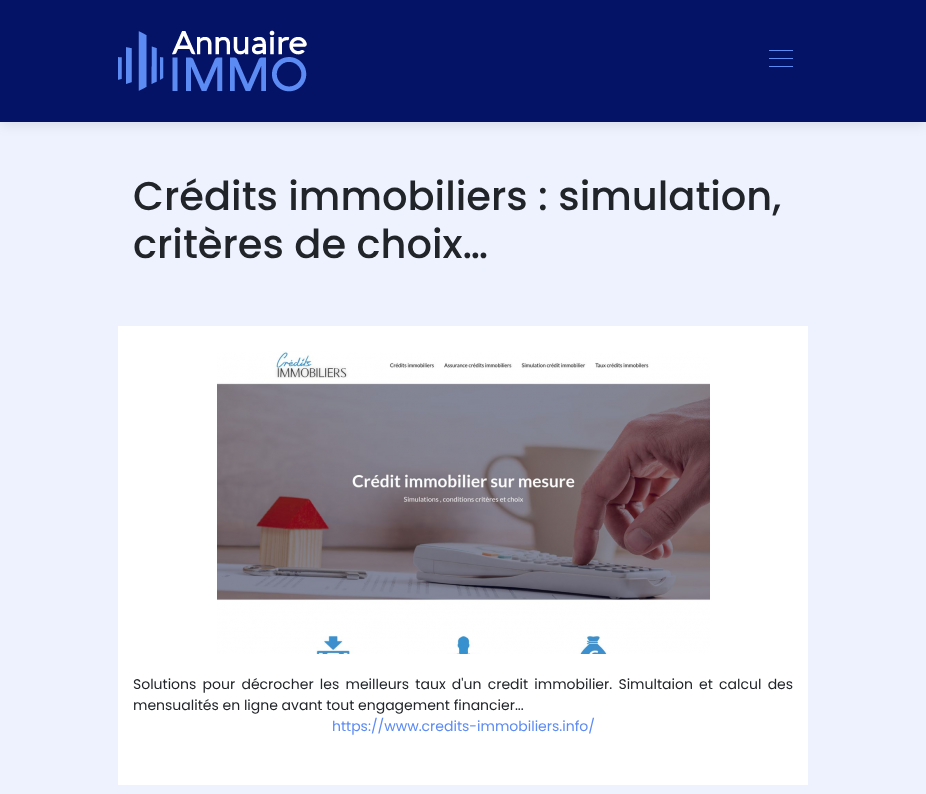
async function draw(canvas) {
  canvas.width = 926
  canvas.height = 794
  const ctx = canvas.getContext('2d')
  ctx.miterLimit = 4
  ctx.fontKerning = 'normal'
  async function loadImage(src) {
    const img = new Image()
    img.src = src
    await img.decode()
    return img
  }

  ctx.fillStyle = '#eef2ff'
  ctx.fillRect(0, 0, 926, 794)
  ctx.fillStyle = '#0000001a'
  ctx.filter = 'blur(6.5px)'
  ctx.beginPath()
  ctx.rect(0, 2, 926, 122)
  ctx.fill()
  ctx.filter = 'none'
  ctx.fillStyle = '#051367'
  ctx.fillRect(0, 0, 926, 122)
  ctx.drawImage(await loadImage('image0.png'), 118, 30, 189, 62)
  ctx.fillStyle = '#5d8bf4'
  ctx.fillRect(769, 50, 24, 1)
  ctx.fillRect(769, 58, 24, 1)
  ctx.fillRect(769, 66, 24, 1)
  ctx.font = '500 40px Poppins'
  ctx.fillStyle = '#212529'
  ctx.fillText('Crédits immobiliers : simulation,', 133, 210)
  ctx.fillText('critères de choix…', 133, 258)
  ctx.fillStyle = '#fff'
  ctx.fillRect(118, 326, 690, 459)
  ctx.drawImage(await loadImage('image1.png'), 217, 351, 493, 303)
  ctx.wordSpacing = '2.5px'
  ctx.font = '14px Poppins'
  ctx.fillStyle = '#212529'
  ctx.fillText('Solutions pour décrocher les meilleurs taux d\'un credit immobilier. Simultaion et calcul des', 133, 689)
  ctx.wordSpacing = '0px'
  ctx.fillText('mensualités en ligne avant tout engagement financier...', 133, 710)
  ctx.fillStyle = '#5d8bf4'
  ctx.fillText('https://www.credits-immobiliers.info/', 332, 731)
}

draw(document.querySelector('canvas'))
